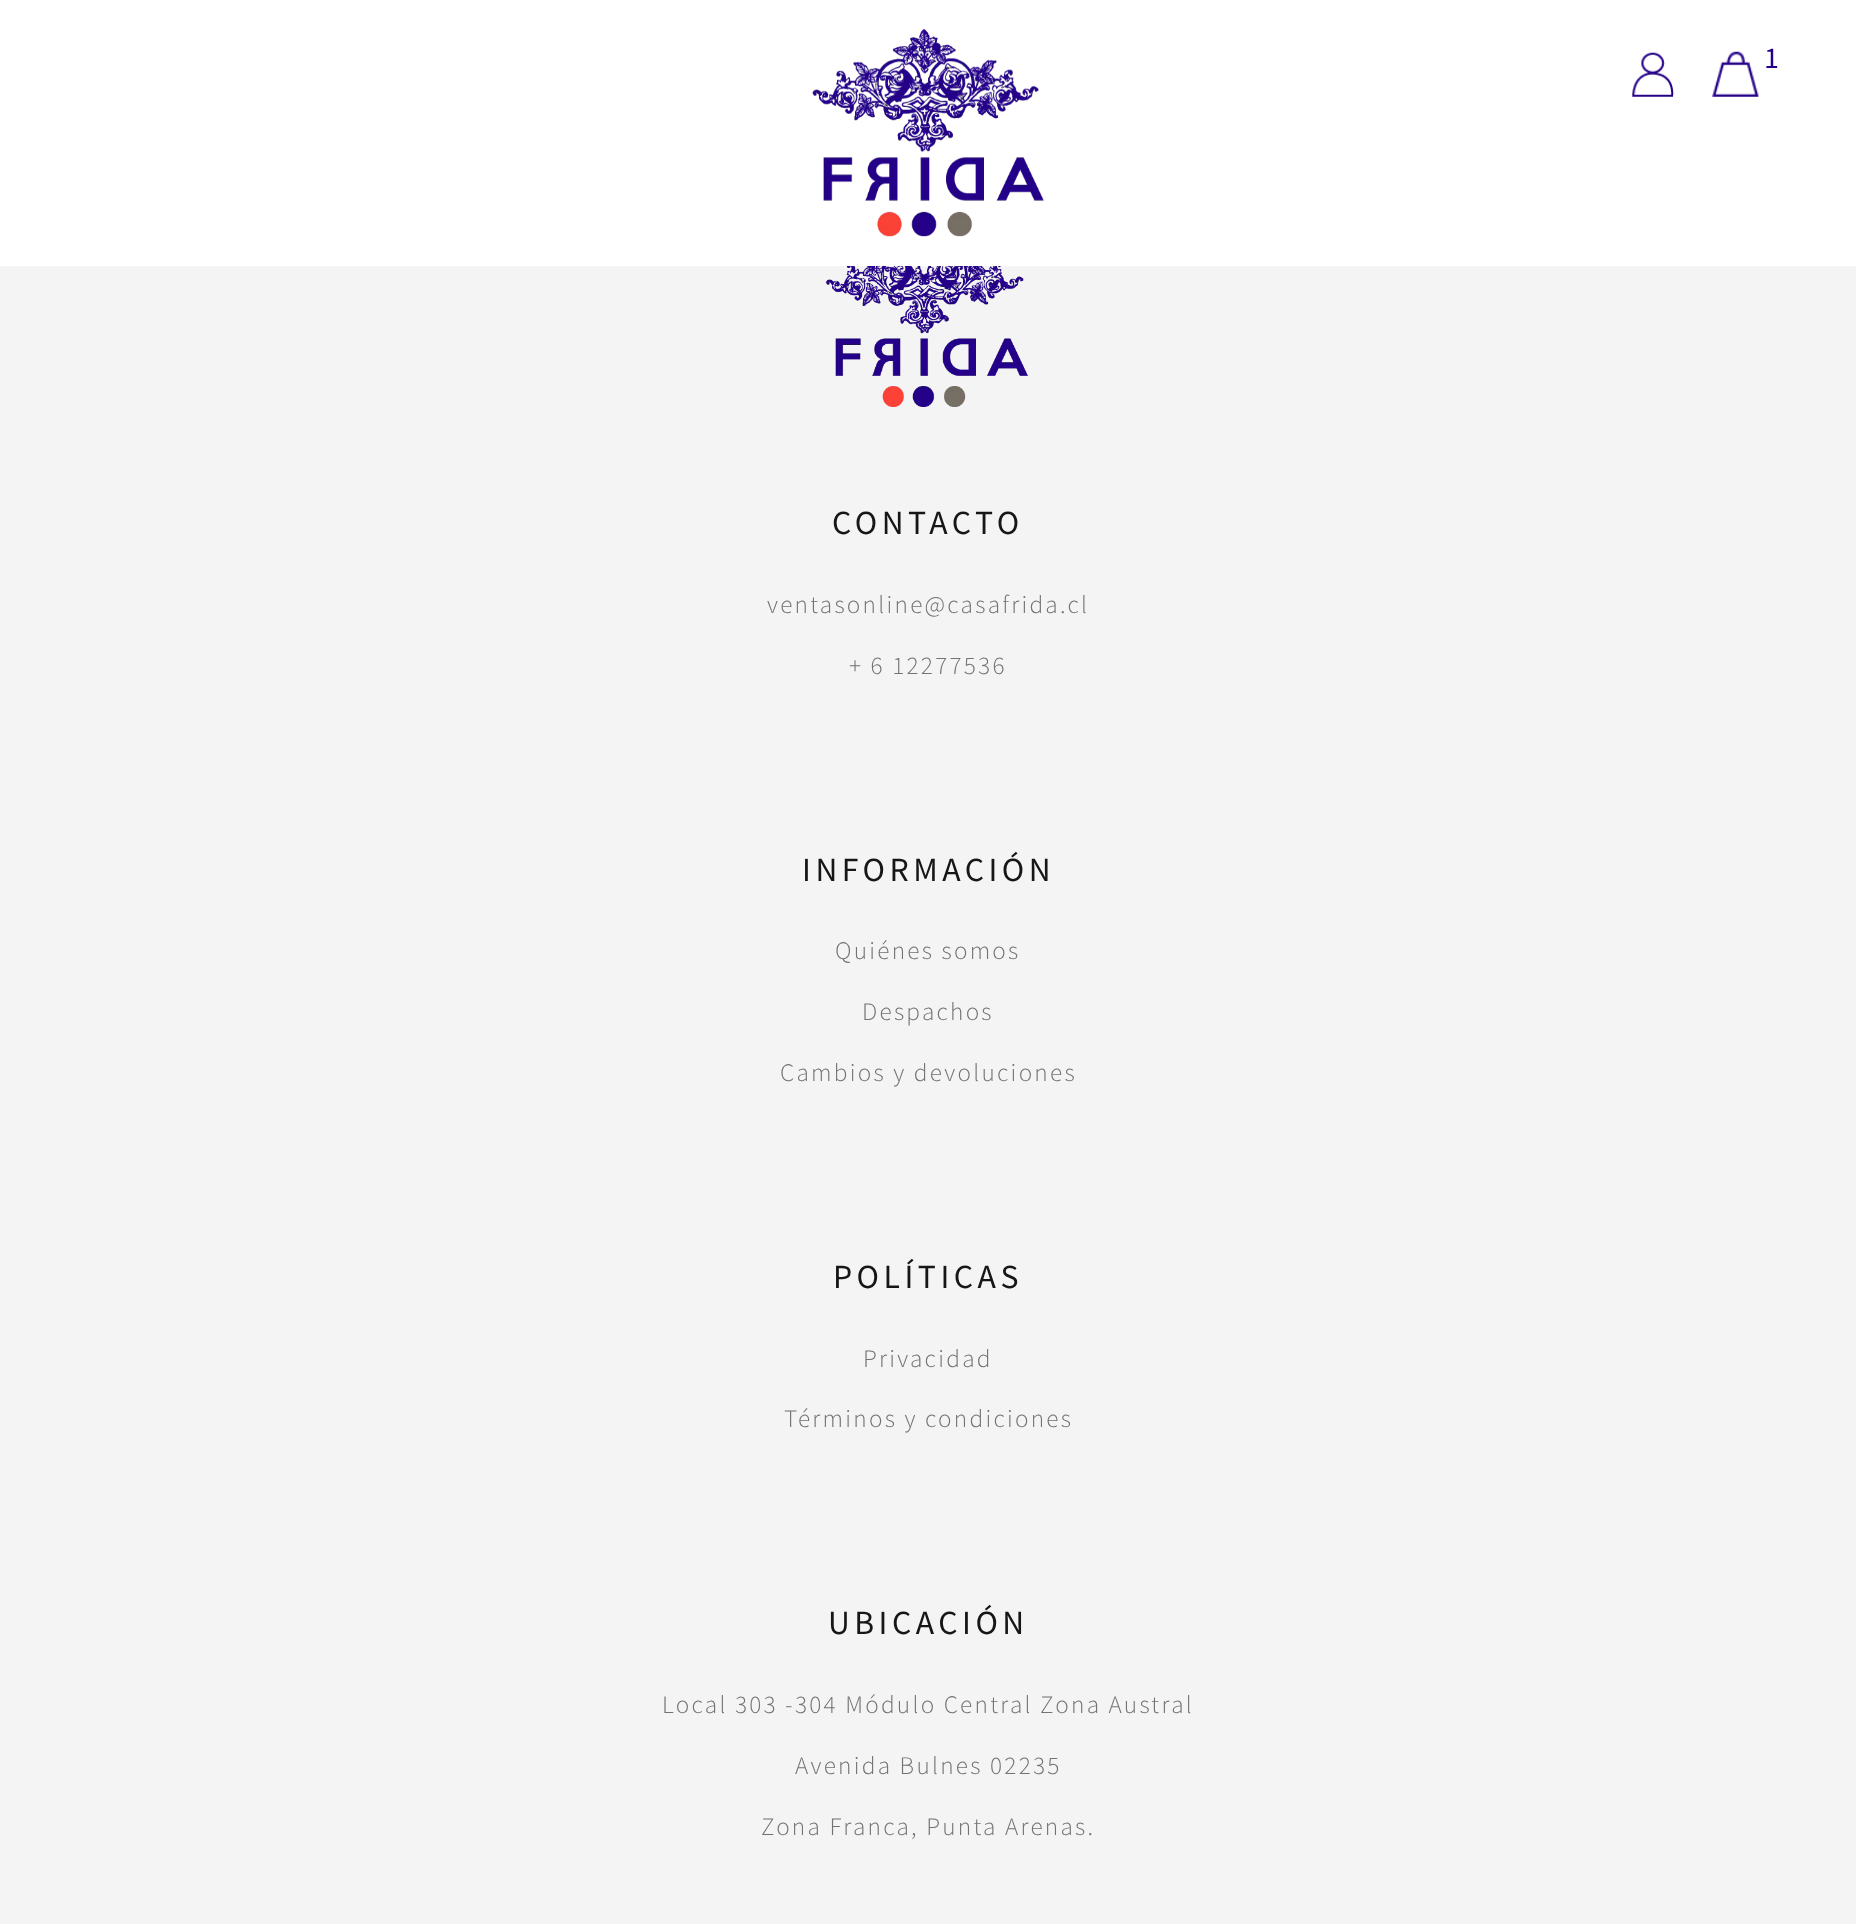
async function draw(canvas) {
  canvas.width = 1856
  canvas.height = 1924
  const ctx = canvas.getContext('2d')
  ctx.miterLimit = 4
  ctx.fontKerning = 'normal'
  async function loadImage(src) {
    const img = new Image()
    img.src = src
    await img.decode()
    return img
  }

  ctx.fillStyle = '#f4f4f4'
  ctx.fillRect(0, 0, 1856, 1924)
  ctx.fillStyle = '#fff'
  ctx.fillRect(0, 0, 1856, 266)
  ctx.drawImage(await loadImage('image0.png'), 812, 29, 232, 208)
  ctx.drawImage(await loadImage('image1.png'), 1632, 52, 42, 45)
  ctx.drawImage(await loadImage('image2.png'), 1712, 51, 47, 46)
  ctx.letterSpacing = '2.25px'
  ctx.font = '30px Source Sans Pro'
  ctx.fillStyle = '#270089'
  ctx.fillText('1', 1764, 68)
  ctx.drawImage(await loadImage('image3.png'), 825, 266, 204, 141)
  ctx.letterSpacing = '4.5px'
  ctx.font = '33.75px Source Sans Pro'
  ctx.fillStyle = '#161616'
  ctx.fillText('CONTACTO', 832, 534)
  ctx.letterSpacing = '2.25px'
  ctx.font = '300 25.2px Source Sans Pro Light'
  ctx.fillStyle = '#727272'
  ctx.fillText('ventasonline@casafrida.cl', 767, 613)
  ctx.fillText('+ 6 12277536', 849, 674)
  ctx.letterSpacing = '4.5px'
  ctx.font = '33.75px Source Sans Pro'
  ctx.fillStyle = '#161616'
  ctx.fillText('INFORMACIÓN', 802, 881)
  ctx.letterSpacing = '2.25px'
  ctx.font = '300 25.2px Source Sans Pro Light'
  ctx.fillStyle = '#727272'
  ctx.fillText('Quiénes somos', 835, 959)
  ctx.fillText('Despachos', 862, 1020)
  ctx.fillText('Cambios y devoluciones', 780, 1081)
  ctx.letterSpacing = '4.5px'
  ctx.font = '33.75px Source Sans Pro'
  ctx.fillStyle = '#161616'
  ctx.fillText('POLÍTICAS', 833, 1288)
  ctx.letterSpacing = '2.25px'
  ctx.font = '300 25.2px Source Sans Pro Light'
  ctx.fillStyle = '#727272'
  ctx.fillText('Privacidad', 863, 1367)
  ctx.fillText('Términos y condiciones', 784, 1427)
  ctx.letterSpacing = '4.5px'
  ctx.font = '33.75px Source Sans Pro'
  ctx.fillStyle = '#161616'
  ctx.fillText('UBICACIÓN', 828, 1634)
  ctx.letterSpacing = '2.25px'
  ctx.font = '300 25.2px Source Sans Pro Light'
  ctx.fillStyle = '#727272'
  ctx.fillText('Local 303 -304 Módulo Central Zona Austral', 662, 1713)
  ctx.fillText('Avenida Bulnes 02235', 795, 1774)
  ctx.fillText('Zona Franca, Punta Arenas.', 761, 1835)
}

draw(document.querySelector('canvas'))
